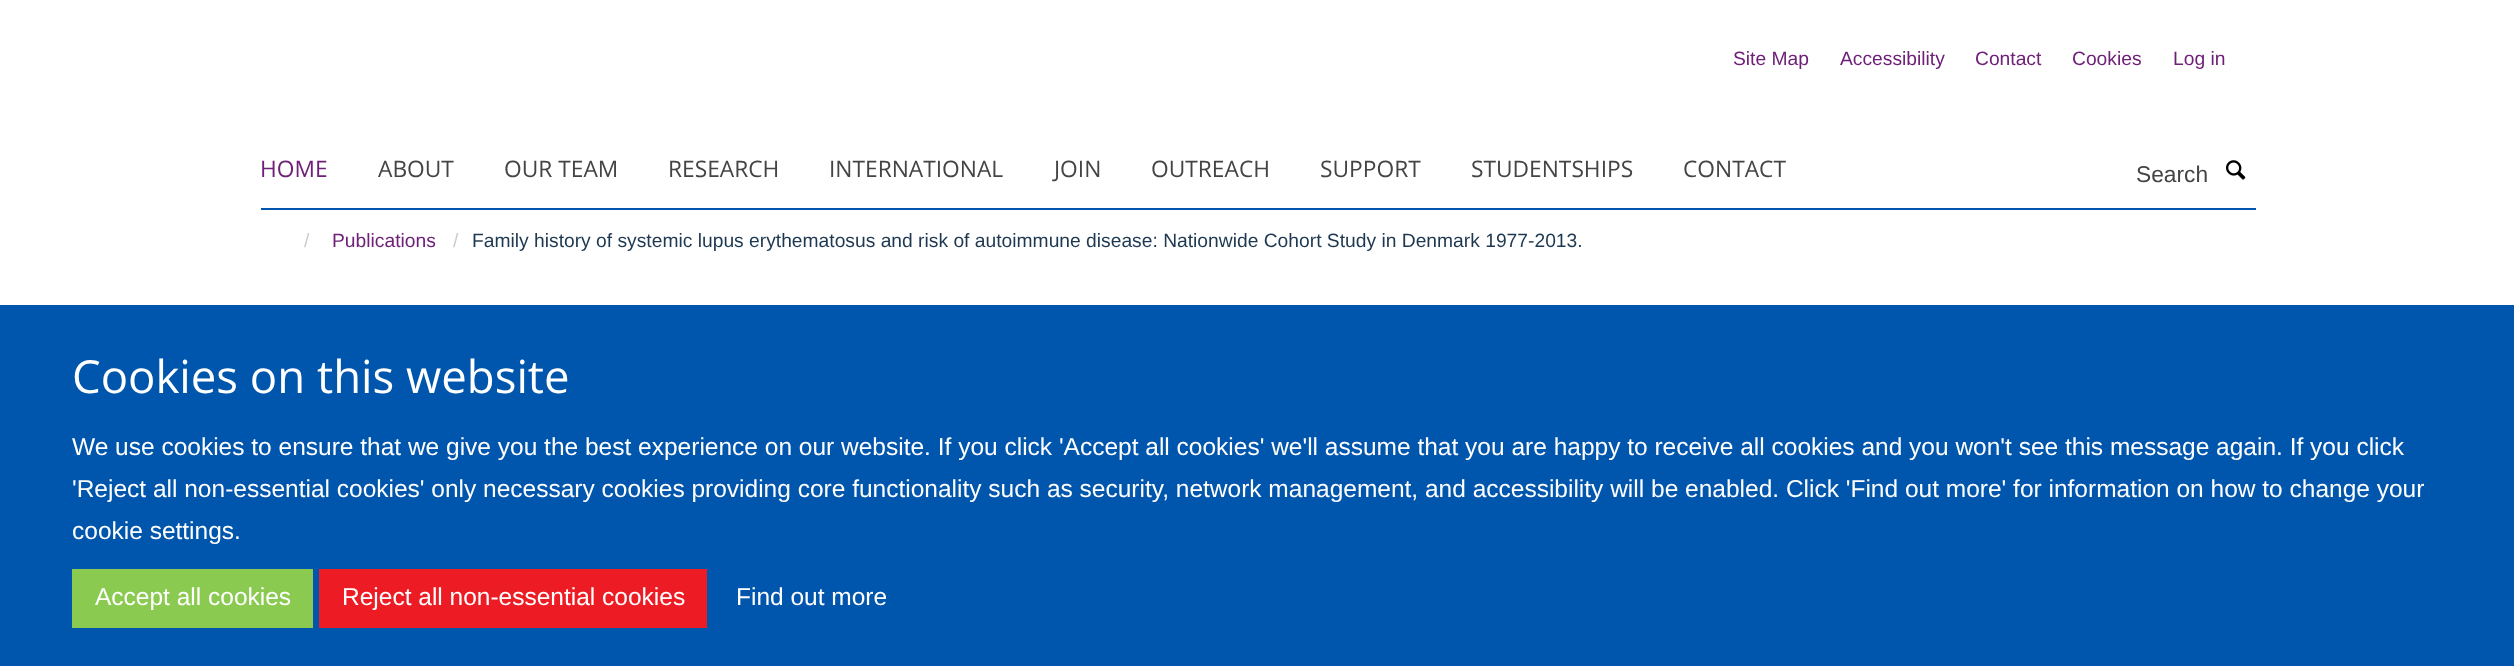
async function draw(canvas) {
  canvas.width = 2514
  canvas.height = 666
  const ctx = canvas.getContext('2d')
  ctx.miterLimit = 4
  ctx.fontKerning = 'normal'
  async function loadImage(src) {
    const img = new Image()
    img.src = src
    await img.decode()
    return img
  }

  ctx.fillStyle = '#fff'
  ctx.fillRect(0, 0, 2514, 666)
  ctx.font = '19.25px Liberation Sans'
  ctx.fillStyle = '#6f2078'
  ctx.fillText('Site Map', 1733, 65)
  ctx.fillText('Accessibility', 1840, 65)
  ctx.fillText('Contact', 1975, 65)
  ctx.fillText('Cookies', 2072, 65)
  ctx.fillText('Log in', 2173, 65)
  ctx.fillStyle = '#0055ad'
  ctx.fillRect(261, 208, 1995, 2)
  ctx.font = '22.75px Open Sans'
  ctx.fillStyle = '#6f2078'
  ctx.fillText('HOME', 260, 177)
  ctx.fillStyle = '#444'
  ctx.fillText('ABOUT', 378, 177)
  ctx.fillText('OUR TEAM', 504, 177)
  ctx.fillText('RESEARCH', 668, 177)
  ctx.fillText('INTERNATIONAL', 829, 177)
  ctx.fillText('JOIN', 1054, 177)
  ctx.fillText('OUTREACH', 1151, 177)
  ctx.fillText('SUPPORT', 1320, 177)
  ctx.fillText('STUDENTSHIPS', 1471, 177)
  ctx.fillText('CONTACT', 1683, 177)
  ctx.font = '22.75px Liberation Sans'
  ctx.fillText('Search', 2136, 182)
  ctx.drawImage(await loadImage('image0.png'), 2226, 160, 20, 20)
  ctx.font = '19.25px Liberation Sans'
  ctx.fillStyle = '#ccc'
  ctx.fillText('/', 304, 247)
  ctx.fillStyle = '#6f2078'
  ctx.fillText('Publications', 332, 247)
  ctx.fillStyle = '#ccc'
  ctx.fillText('/', 453, 247)
  ctx.fillStyle = '#1d3850'
  ctx.fillText('Family history of systemic lupus erythematosus and risk of autoimmune disease: Nationwide Cohort Study in Denmark 1977-2013.', 472, 247)
  ctx.fillStyle = '#0055ad'
  ctx.fillRect(0, 305, 2514, 361)
  ctx.font = '45.5px Open Sans'
  ctx.fillStyle = '#fff'
  ctx.fillText('Cookies on this website', 72, 393)
  ctx.font = '24.5px Liberation Sans'
  ctx.fillText('We use cookies to ensure that we give you the best experience on our website. If you click \'Accept all cookies\' we\'ll assume that you are happy to receive all cookies and you won\'t see this message again. If you click', 72, 455)
  ctx.fillText('\'Reject all non-essential cookies\' only necessary cookies providing core functionality such as security, network management, and accessibility will be enabled. Click \'Find out more\' for information on how to change your', 72, 497)
  ctx.fillText('cookie settings.', 72, 539)
  ctx.fillStyle = '#8bca50'
  ctx.fillRect(72, 569, 241, 59)
  ctx.fillStyle = '#fff'
  ctx.fillText('Accept all cookies', 95, 605)
  ctx.fillStyle = '#ed1c24'
  ctx.fillRect(319, 569, 388, 59)
  ctx.fillStyle = '#fff'
  ctx.fillText('Reject all non-essential cookies', 342, 605)
  ctx.fillText('Find out more', 736, 605)
}

draw(document.querySelector('canvas'))
